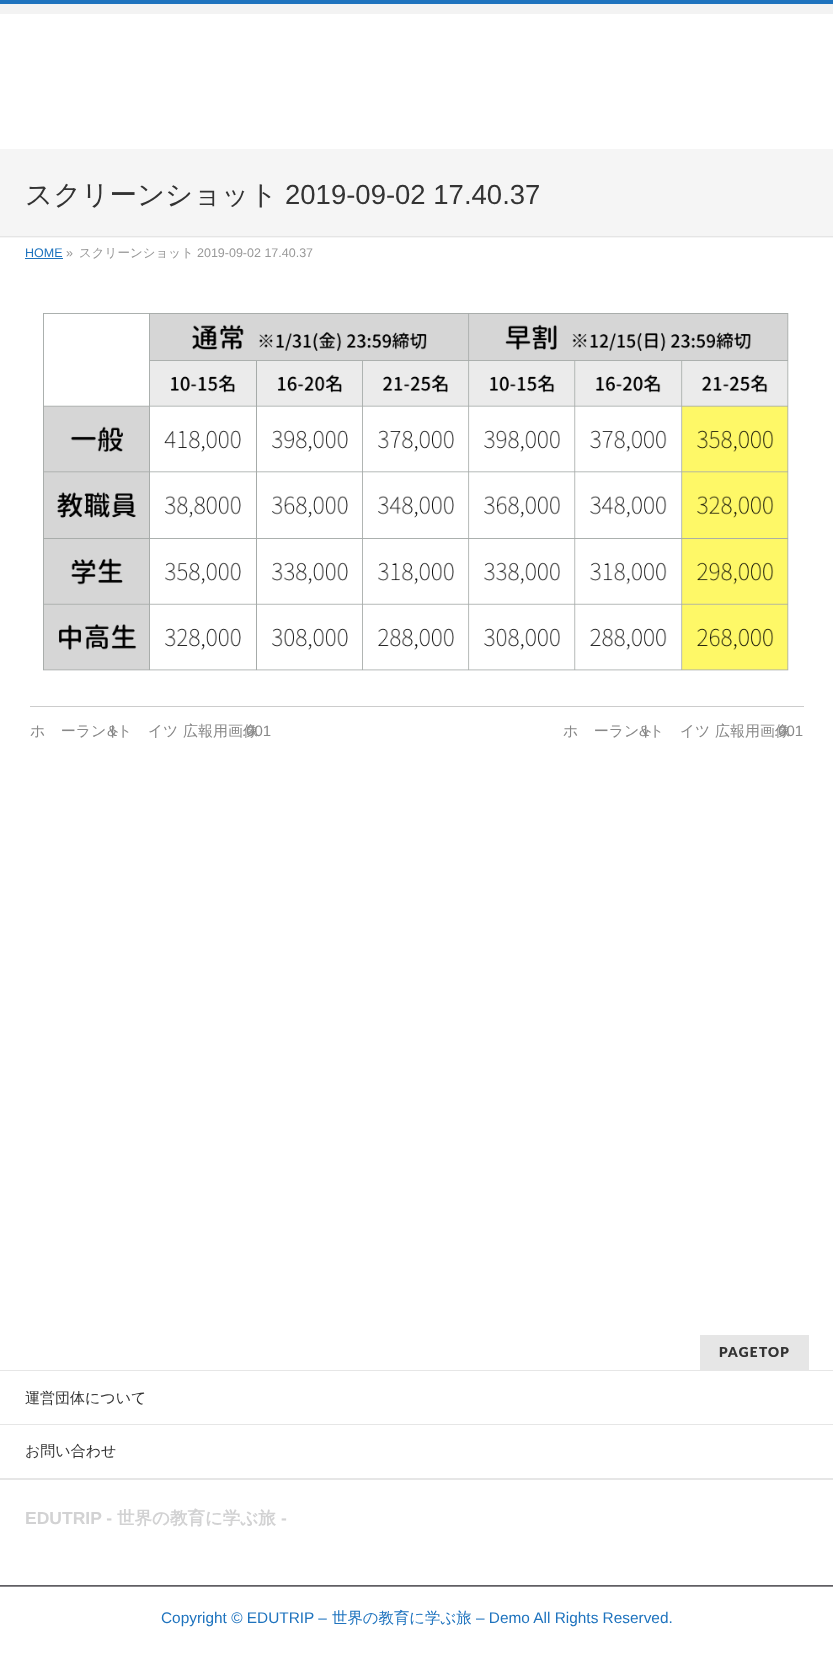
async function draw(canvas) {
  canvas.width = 833
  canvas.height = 1680
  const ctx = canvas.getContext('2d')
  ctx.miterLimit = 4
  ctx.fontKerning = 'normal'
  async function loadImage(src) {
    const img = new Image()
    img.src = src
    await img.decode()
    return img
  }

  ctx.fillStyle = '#fff'
  ctx.fillRect(0, 0, 833, 1680)
  ctx.fillStyle = '#f3f3f3'
  ctx.fillRect(0, 4, 833, 10)
  ctx.fillStyle = '#1e73be'
  ctx.fillRect(0, 0, 833, 4)
  ctx.fillStyle = '#f5f5f5'
  ctx.fillRect(0, 149, 833, 89)
  ctx.fillStyle = '#e5e5e5'
  ctx.fillRect(0, 236, 833, 1)
  ctx.font = '500 27.5px WenQuanYi Zen Hei'
  ctx.fillStyle = '#333'
  ctx.fillText('スクリーンショット', 25, 204)
  ctx.font = '27.5px Liberation Sans'
  ctx.fillText('2019-09-02 17.40.37', 285, 204)
  ctx.font = '12.5px Liberation Sans'
  ctx.fillStyle = '#1e73be'
  ctx.fillText('HOME', 25, 257)
  ctx.fillRect(25, 258, 38, 1)
  ctx.fillStyle = '#999'
  ctx.fillText('»', 66, 257)
  ctx.font = '500 12.5px WenQuanYi Zen Hei'
  ctx.fillText('スクリーンショット', 79, 257)
  ctx.font = '12.5px Liberation Sans'
  ctx.fillText('2019-09-02 17.40.37', 197, 257)
  ctx.drawImage(await loadImage('image0.png'), 43, 313, 746, 358)
  ctx.fillStyle = '#ccc'
  ctx.fillRect(30, 706, 774, 1)
  ctx.font = '500 15px WenQuanYi Zen Hei'
  ctx.fillStyle = '#888'
  ctx.fillText('ポーランド', 30, 736)
  ctx.font = '15px Liberation Sans'
  ctx.fillText('&', 107, 736)
  ctx.font = '500 15px WenQuanYi Zen Hei'
  ctx.fillText('ドイツ 広報用画像', 117, 736)
  ctx.font = '15px Liberation Sans'
  ctx.fillText('.001', 242, 736)
  ctx.font = '500 15px WenQuanYi Zen Hei'
  ctx.fillText('ポーランド', 563, 736)
  ctx.font = '15px Liberation Sans'
  ctx.fillText('&', 639, 736)
  ctx.font = '500 15px WenQuanYi Zen Hei'
  ctx.fillText('ドイツ 広報用画像', 649, 736)
  ctx.font = '15px Liberation Sans'
  ctx.fillText('.001', 774, 736)
  ctx.fillStyle = '#e6e6e6'
  ctx.fillRect(700, 1335, 109, 35)
  ctx.letterSpacing = '1.25px'
  ctx.font = '900 13.75px Lato'
  ctx.fillStyle = '#333'
  ctx.fillText('PAGETOP', 719, 1357)
  ctx.fillStyle = '#e6e6e6'
  ctx.fillRect(0, 1370, 833, 1)
  ctx.fillRect(0, 1478, 833, 2)
  ctx.fillRect(0, 1424, 833, 1)
  ctx.letterSpacing = '0px'
  ctx.font = '500 15px WenQuanYi Zen Hei'
  ctx.fillStyle = '#333'
  ctx.fillText('運営団体について', 25, 1403)
  ctx.fillText('お問い合わせ', 25, 1456)
  ctx.fillStyle = '#5f5e63'
  ctx.fillRect(0, 1585, 833, 1)
  ctx.font = 'bold 17.5px Liberation Sans'
  ctx.fillStyle = '#d2d2d3'
  ctx.fillText('EDUTRIP -', 25, 1524)
  ctx.font = 'bold 17.5px WenQuanYi Zen Hei'
  ctx.fillText('世界の教育に学ぶ旅', 117, 1524)
  ctx.font = 'bold 17.5px Liberation Sans'
  ctx.fillText('-', 281, 1524)
  ctx.fillStyle = '#8a898c'
  ctx.fillRect(0, 1586, 833, 1)
  ctx.font = '15.4px Liberation Sans'
  ctx.fillStyle = '#1e73be'
  ctx.fillText('Copyright © EDUTRIP –', 161, 1623)
  ctx.font = '500 15.4px WenQuanYi Zen Hei'
  ctx.fillText('世界の教育に学ぶ旅', 332, 1623)
  ctx.font = '15.4px Liberation Sans'
  ctx.fillText('– Demo All Rights Reserved.', 476, 1623)
}

draw(document.querySelector('canvas'))
